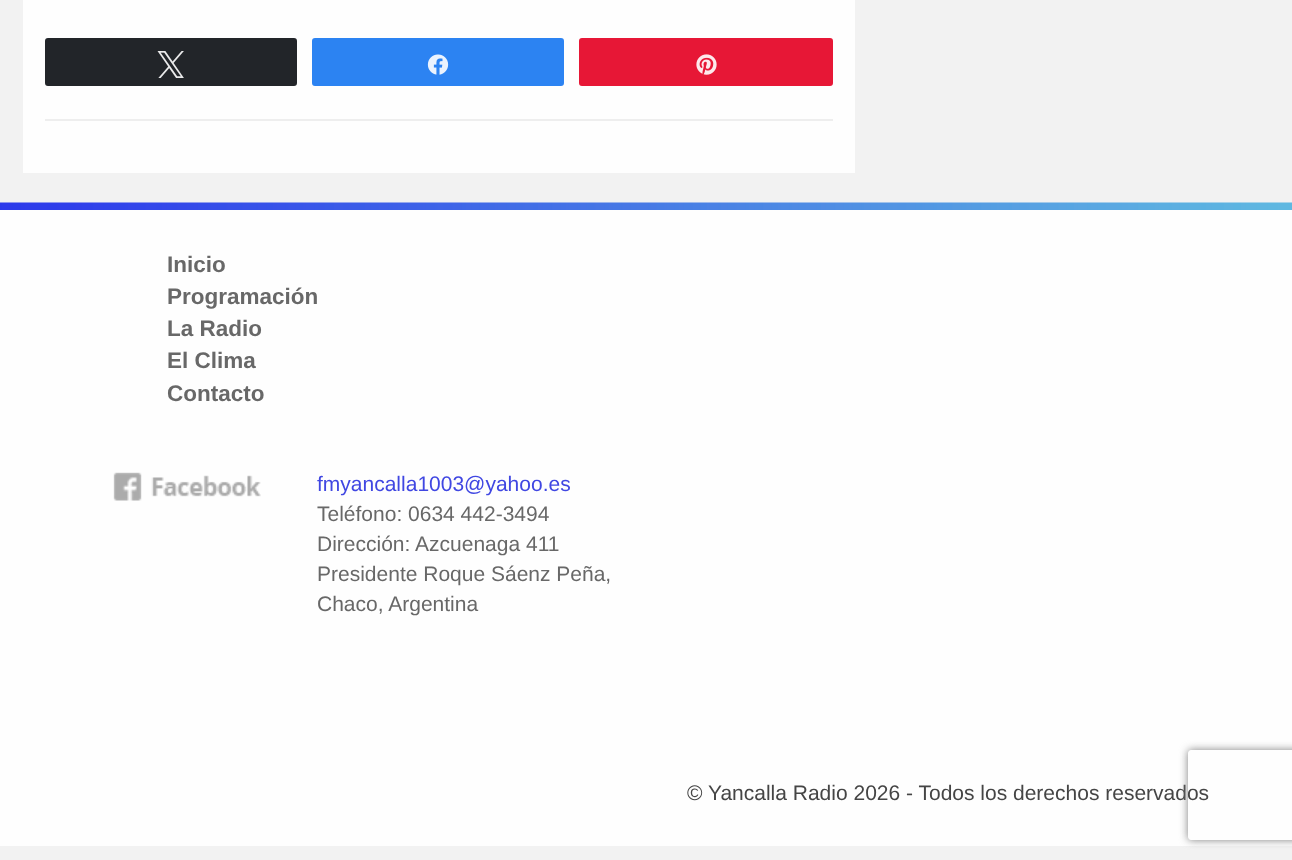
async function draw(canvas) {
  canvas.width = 1292
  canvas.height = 860
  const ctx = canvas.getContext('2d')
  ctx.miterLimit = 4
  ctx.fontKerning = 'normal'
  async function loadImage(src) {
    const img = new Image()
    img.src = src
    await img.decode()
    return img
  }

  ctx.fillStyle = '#f2f2f2'
  ctx.fillRect(0, 0, 1292, 860)
  ctx.fillStyle = '#fefefe'
  ctx.fillRect(23, 0, 832, 173)
  ctx.fillStyle = '#222529'
  ctx.beginPath()
  ctx.roundRect(46, 39, 250, 46, 2)
  ctx.fill()
  ctx.strokeStyle = '#222529'
  ctx.lineWidth = 2
  ctx.stroke()
  ctx.drawImage(await loadImage('image0.png'), 157, 51, 27, 27)
  ctx.fillStyle = '#2c83f2'
  ctx.beginPath()
  ctx.roundRect(313, 39, 250, 46, 2)
  ctx.fill()
  ctx.strokeStyle = '#2c83f2'
  ctx.stroke()
  ctx.drawImage(await loadImage('image1.png'), 427, 54, 22, 21)
  ctx.fillStyle = '#e71736'
  ctx.beginPath()
  ctx.roundRect(580, 39, 252, 46, 2)
  ctx.fill()
  ctx.strokeStyle = '#e71736'
  ctx.stroke()
  ctx.drawImage(await loadImage('image2.png'), 696, 54, 21, 21)
  ctx.fillStyle = '#eee'
  ctx.fillRect(45, 119, 788, 2)
  ctx.drawImage(await loadImage('image3.png'), 0, 202, 1292, 8)
  ctx.fillStyle = '#fefefe'
  ctx.fillRect(0, 210, 1292, 636)
  ctx.font = 'bold 22.5px Liberation Sans'
  ctx.fillStyle = '#686868'
  ctx.fillText('Inicio', 167, 272)
  ctx.fillText('Programación', 167, 304)
  ctx.fillText('La Radio', 167, 336)
  ctx.fillText('El Clima', 167, 368)
  ctx.fillText('Contacto', 167, 401)
  ctx.drawImage(await loadImage('image4.png'), 113, 472, 148, 29)
  ctx.font = '21px Liberation Sans'
  ctx.fillStyle = '#4047e2'
  ctx.fillText('fmyancalla1003@yahoo.es', 317, 491)
  ctx.fillStyle = '#686868'
  ctx.fillText('Teléfono: 0634 442-3494', 317, 521)
  ctx.fillText('Dirección: Azcuenaga 411', 317, 551)
  ctx.fillText('Presidente Roque Sáenz Peña,', 317, 581)
  ctx.fillText('Chaco, Argentina', 317, 611)
  ctx.fillStyle = '#454545'
  ctx.fillText('© Yancalla Radio 2026 - Todos los derechos reservados', 687, 800)
  ctx.save()
  ctx.beginPath()
  ctx.moveTo(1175, 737)
  ctx.lineTo(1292, 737)
  ctx.lineTo(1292, 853)
  ctx.lineTo(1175, 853)
  ctx.closePath()
  ctx.moveTo(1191, 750)
  ctx.lineTo(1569, 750)
  ctx.bezierCurveTo(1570.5, 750, 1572, 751.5, 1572, 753)
  ctx.lineTo(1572, 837)
  ctx.bezierCurveTo(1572, 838.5, 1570.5, 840, 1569, 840)
  ctx.lineTo(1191, 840)
  ctx.bezierCurveTo(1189.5, 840, 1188, 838.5, 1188, 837)
  ctx.lineTo(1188, 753)
  ctx.bezierCurveTo(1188, 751.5, 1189.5, 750, 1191, 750)
  ctx.closePath()
  ctx.clip('evenodd')
  ctx.fillStyle = '#808080'
  ctx.filter = 'blur(4px)'
  ctx.beginPath()
  ctx.roundRect(1188, 750, 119, 90, 3)
  ctx.fill()
  ctx.filter = 'none'
  ctx.restore()
}

draw(document.querySelector('canvas'))
